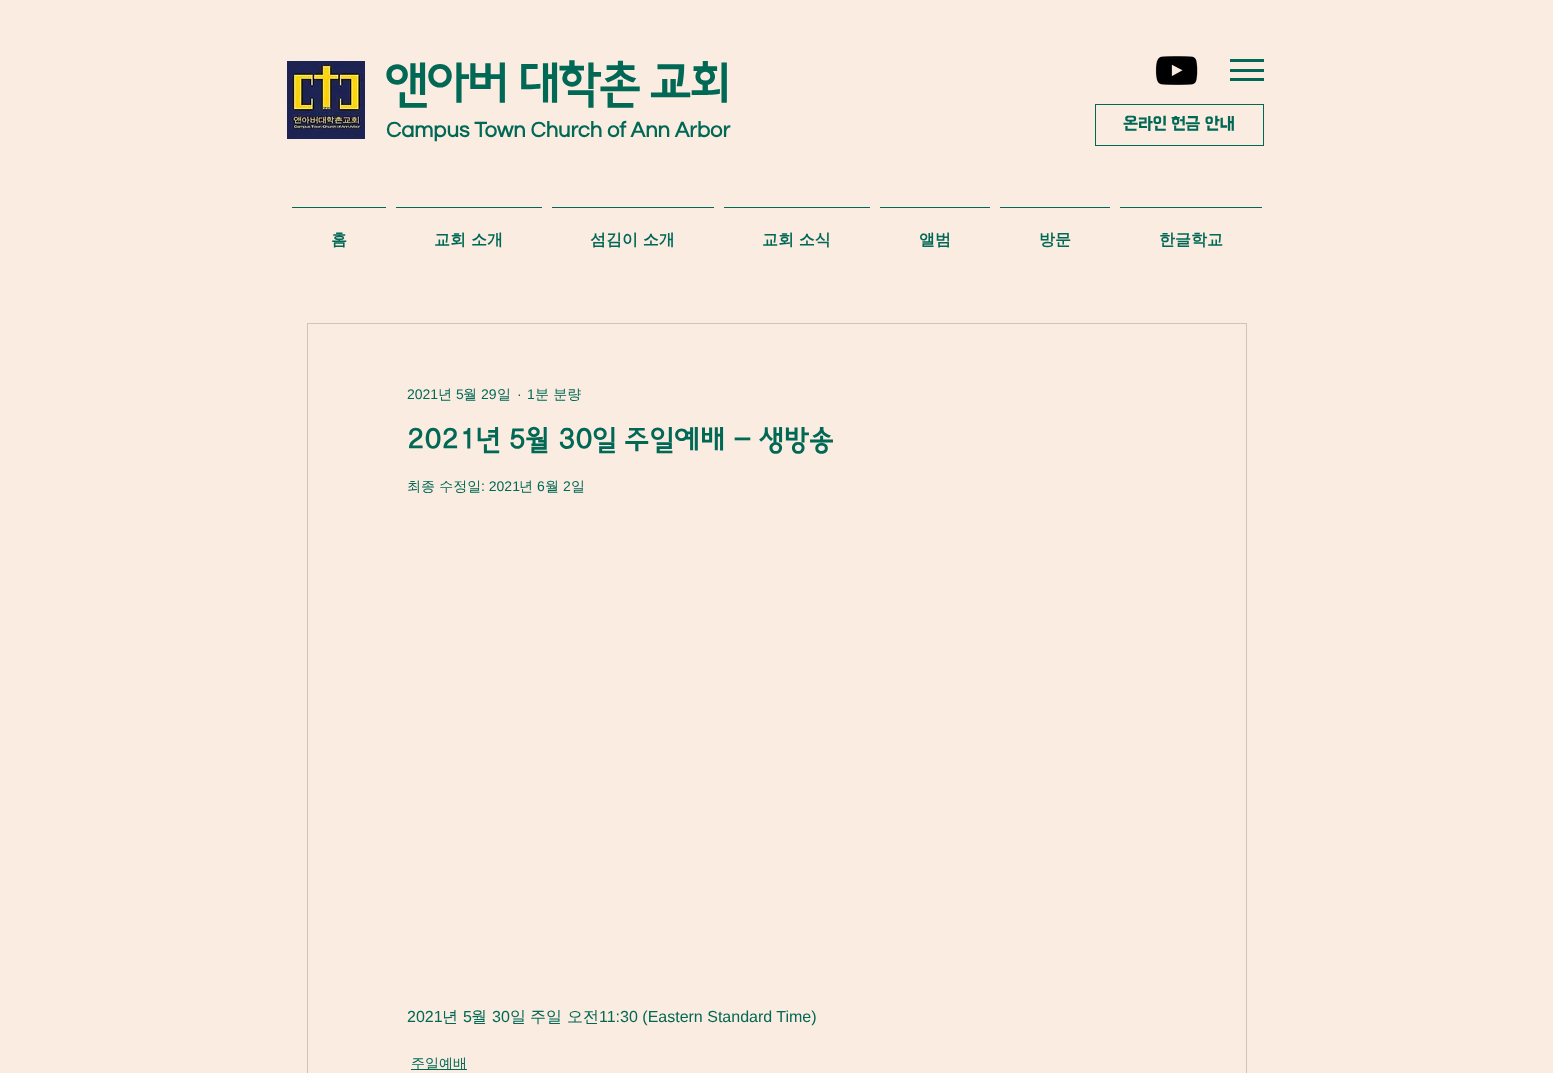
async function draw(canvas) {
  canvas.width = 1553
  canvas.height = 1073
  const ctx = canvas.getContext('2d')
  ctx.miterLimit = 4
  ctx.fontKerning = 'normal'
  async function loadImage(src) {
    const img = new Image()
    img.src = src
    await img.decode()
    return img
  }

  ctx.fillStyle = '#faece1'
  ctx.fillRect(0, 0, 1553, 1073)
  ctx.drawImage(await loadImage('image0.png'), 287, 61, 78, 78)
  ctx.letterSpacing = '-2.4px'
  ctx.font = 'bold 48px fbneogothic'
  ctx.fillStyle = '#016855'
  ctx.fillText('앤아버 대학촌 교회', 386, 102)
  ctx.drawImage(await loadImage('image1.png'), 1155, 56, 43, 29)
  ctx.fillRect(1230, 78, 34, 3)
  ctx.fillRect(1230, 59, 34, 3)
  ctx.fillRect(1230, 69, 34, 3)
  ctx.letterSpacing = '0px'
  ctx.font = 'bold 22px Questrial'
  ctx.fillText('Campus Town Church of Ann Arbor', 386, 137)
  ctx.strokeStyle = '#016855'
  ctx.strokeRect(1095.5, 104.5, 168, 41)
  ctx.font = '18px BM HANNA'
  ctx.fillText('온라인 헌금 안내', 1123, 129)
  ctx.fillRect(292, 207, 94, 1)
  ctx.font = 'bold 16px WenQuanYi Zen Hei'
  ctx.fillText('홈', 331, 245)
  ctx.fillRect(396, 207, 146, 1)
  ctx.fillText('교회', 434, 245)
  ctx.fillText('소개', 471, 245)
  ctx.fillRect(552, 207, 162, 1)
  ctx.fillText('섬김이 소개', 590, 245)
  ctx.fillRect(724, 207, 146, 1)
  ctx.fillText('교회 소식', 762, 245)
  ctx.fillRect(880, 207, 110, 1)
  ctx.fillText('앨범', 919, 245)
  ctx.fillRect(1000, 207, 110, 1)
  ctx.fillText('방문', 1039, 245)
  ctx.fillRect(1120, 207, 142, 1)
  ctx.fillText('한글학교', 1159, 245)
  ctx.strokeStyle = '#d1c3b8'
  ctx.strokeRect(307.5, 323.5, 939, 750)
  ctx.font = '14px Liberation Sans'
  ctx.fillText('2021', 407, 399)
  ctx.font = '500 14px WenQuanYi Zen Hei'
  ctx.fillText('년', 438, 399)
  ctx.font = '14px Liberation Sans'
  ctx.fillText('5', 456, 399)
  ctx.font = '500 14px WenQuanYi Zen Hei'
  ctx.fillText('월', 463, 399)
  ctx.font = '14px Liberation Sans'
  ctx.fillText('29', 481, 399)
  ctx.font = '500 14px WenQuanYi Zen Hei'
  ctx.fillText('일', 497, 399)
  ctx.font = '14px Liberation Sans'
  ctx.fillText('·', 517, 399)
  ctx.fillText('1', 527, 399)
  ctx.font = '500 14px WenQuanYi Zen Hei'
  ctx.fillText('분 분량', 535, 399)
  ctx.font = 'bold 28px fbneogothic'
  ctx.fillText('2021년 5월 30일 주일예배 - 생방송', 407, 450)
  ctx.font = '500 14px WenQuanYi Zen Hei'
  ctx.fillText('최종 수정일', 407, 491)
  ctx.font = '14px Liberation Sans'
  ctx.fillText(': 2021', 481, 491)
  ctx.font = '500 14px WenQuanYi Zen Hei'
  ctx.fillText('년', 519, 491)
  ctx.font = '14px Liberation Sans'
  ctx.fillText('6', 537, 491)
  ctx.font = '500 14px WenQuanYi Zen Hei'
  ctx.fillText('월', 545, 491)
  ctx.font = '14px Liberation Sans'
  ctx.fillText('2', 563, 491)
  ctx.font = '500 14px WenQuanYi Zen Hei'
  ctx.fillText('일', 571, 491)
  ctx.font = '16px Liberation Sans'
  ctx.fillText('2021', 407, 1022)
  ctx.font = '500 16px WenQuanYi Zen Hei'
  ctx.fillText('년', 442, 1022)
  ctx.font = '16px Liberation Sans'
  ctx.fillText('5', 463, 1022)
  ctx.font = '500 16px WenQuanYi Zen Hei'
  ctx.fillText('월', 471, 1022)
  ctx.font = '16px Liberation Sans'
  ctx.fillText('30', 492, 1022)
  ctx.font = '500 16px WenQuanYi Zen Hei'
  ctx.fillText('일', 510, 1022)
  ctx.fillText('주일', 530, 1022)
  ctx.fillText('오전', 567, 1022)
  ctx.font = '16px Liberation Sans'
  ctx.fillText('11:30 (Eastern Standard Time)', 599, 1022)
  ctx.fillRect(411, 1069, 56, 1)
  ctx.font = '500 14px WenQuanYi Zen Hei'
  ctx.fillText('주일예배', 411, 1068)
}

draw(document.querySelector('canvas'))
